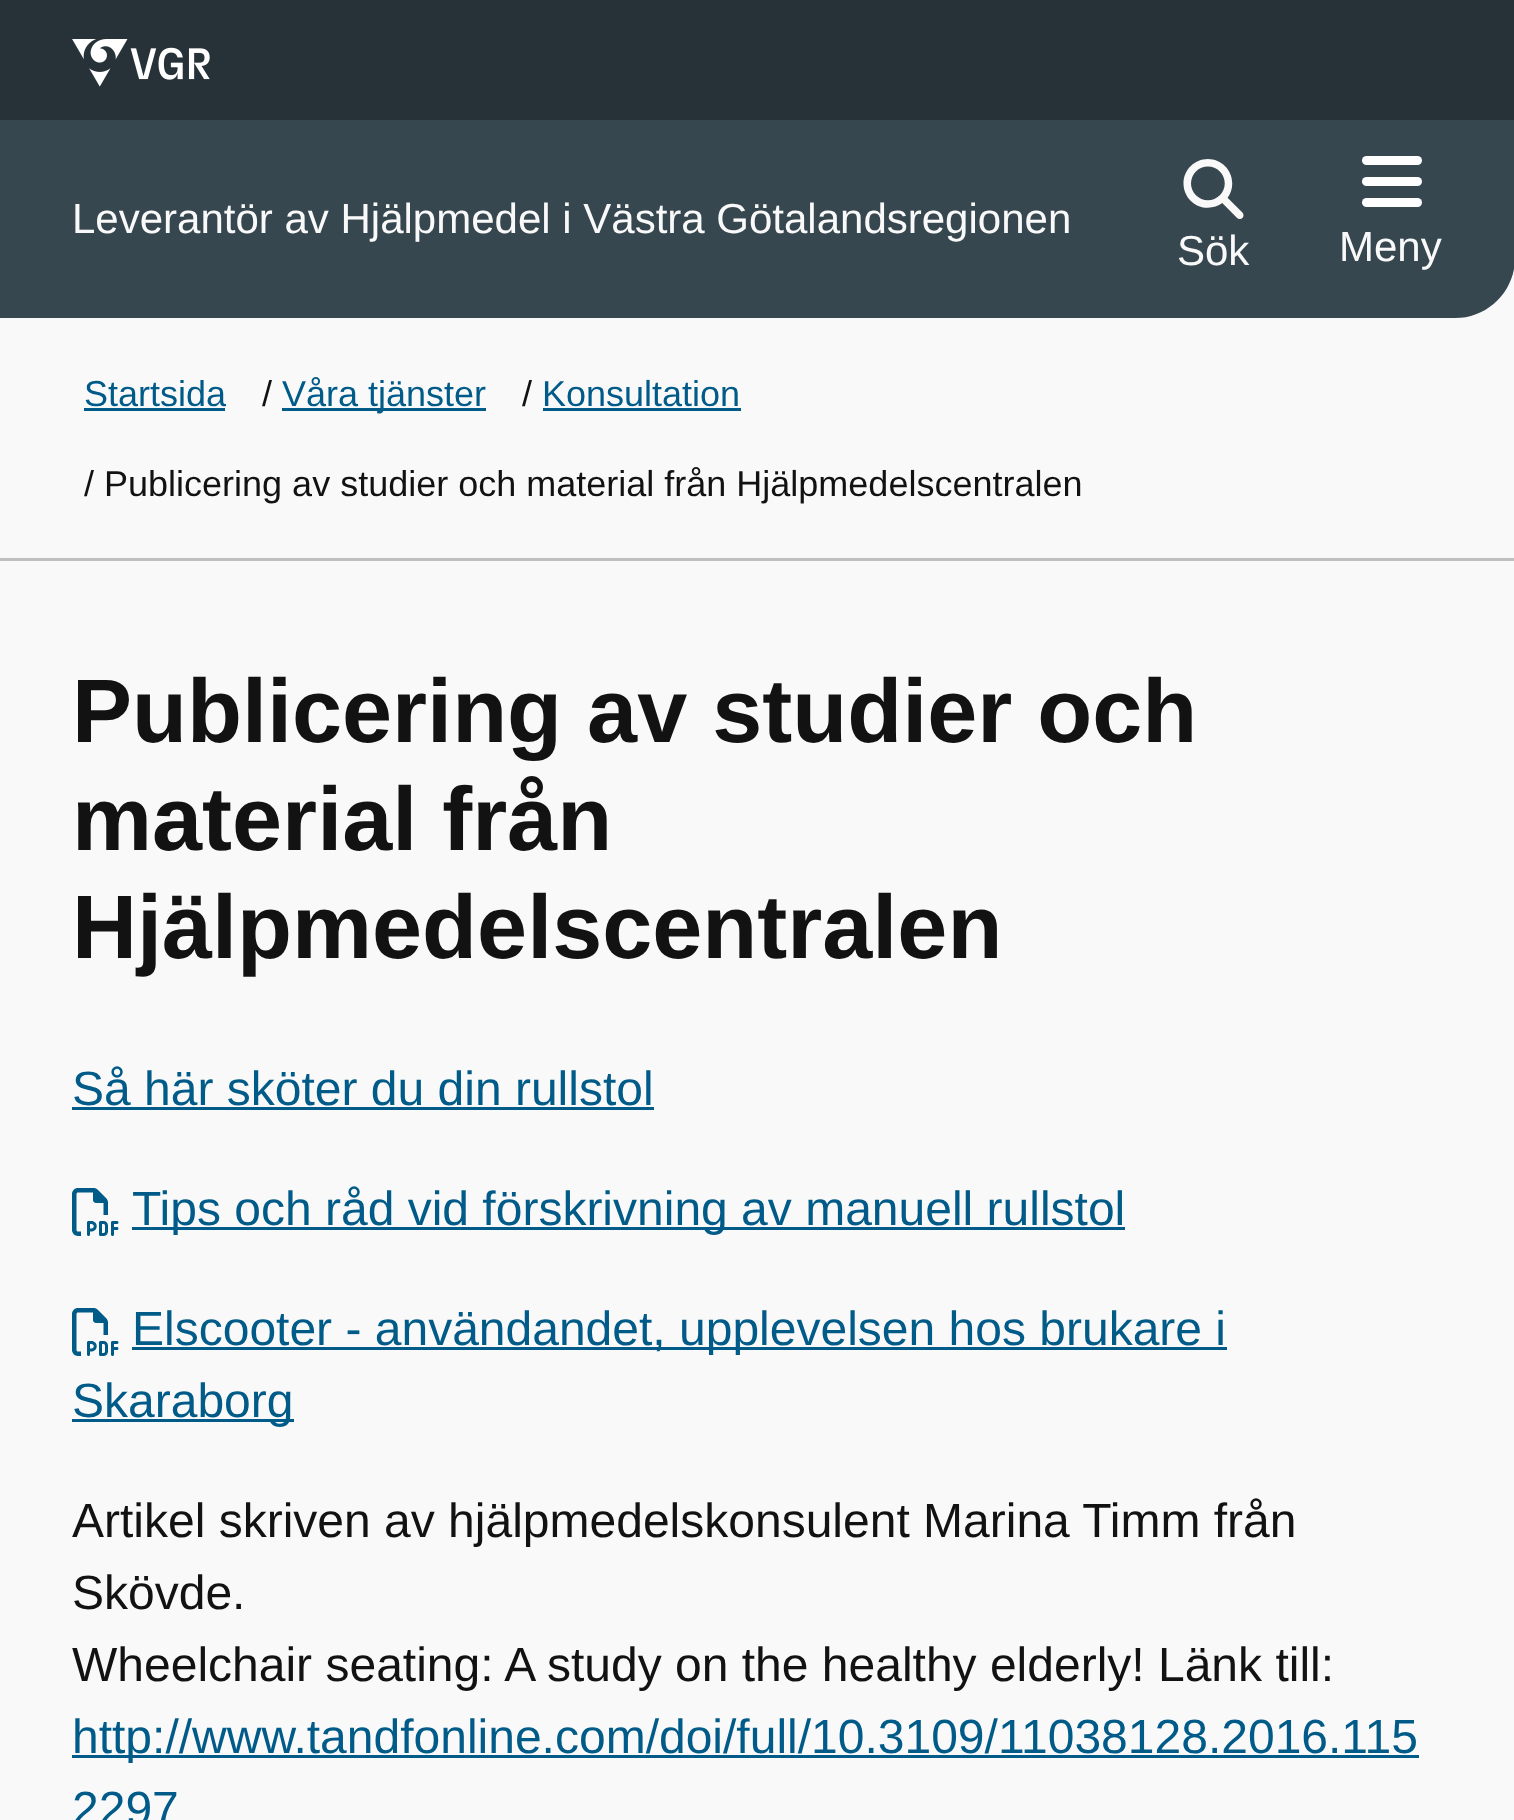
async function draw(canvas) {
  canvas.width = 1514
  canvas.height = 1820
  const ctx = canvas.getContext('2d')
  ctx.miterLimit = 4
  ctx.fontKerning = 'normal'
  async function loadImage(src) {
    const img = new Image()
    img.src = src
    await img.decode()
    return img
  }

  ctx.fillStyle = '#faf9f9'
  ctx.fillRect(0, 0, 1514, 1820)
  ctx.fillStyle = '#273238'
  ctx.fillRect(0, 0, 1514, 120)
  ctx.drawImage(await loadImage('image0.png'), 72, 39, 138, 48)
  ctx.fillStyle = '#37474f'
  ctx.beginPath()
  ctx.moveTo(0, 120)
  ctx.lineTo(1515, 120)
  ctx.lineTo(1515, 258)
  ctx.bezierCurveTo(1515, 291, 1488, 318, 1455, 318)
  ctx.lineTo(0, 318)
  ctx.closePath()
  ctx.fill()
  ctx.font = '42px Liberation Sans'
  ctx.fillStyle = '#f9f9f9'
  ctx.fillText('Leverantör av Hjälpmedel i Västra Götalandsregionen', 72, 233)
  ctx.drawImage(await loadImage('image1.png'), 1183, 159, 61, 60)
  ctx.fillText('Sök', 1177, 265)
  ctx.fillStyle = '#fff'
  ctx.beginPath()
  ctx.roundRect(1362, 156, 60, 9, 4.5)
  ctx.fill()
  ctx.beginPath()
  ctx.roundRect(1362, 177, 60, 9, 4.5)
  ctx.fill()
  ctx.beginPath()
  ctx.roundRect(1362, 198, 60, 9, 4.5)
  ctx.fill()
  ctx.fillStyle = '#f9f9f9'
  ctx.fillText('Meny', 1339, 261)
  ctx.font = '36px Liberation Sans'
  ctx.fillStyle = '#005b89'
  ctx.fillText('Startsida', 84, 406)
  ctx.fillRect(84, 408, 141, 3)
  ctx.fillStyle = '#121212'
  ctx.fillText('/', 262, 406)
  ctx.fillStyle = '#005b89'
  ctx.fillRect(282, 408, 204, 3)
  ctx.fillText('Våra tjänster', 282, 406)
  ctx.fillStyle = '#121212'
  ctx.fillText('/', 522, 406)
  ctx.fillStyle = '#005b89'
  ctx.fillText('Konsultation', 542, 406)
  ctx.fillRect(543, 408, 198, 3)
  ctx.fillStyle = '#121212'
  ctx.fillText('/ Publicering av studier och material från Hjälpmedelscentralen', 84, 496)
  ctx.fillStyle = '#c0bfbf'
  ctx.fillRect(0, 558, 1514, 3)
  ctx.font = 'bold 90px Liberation Sans'
  ctx.fillStyle = '#121212'
  ctx.fillText('Publicering av studier och', 72, 742)
  ctx.fillText('material från', 72, 850)
  ctx.fillText('Hjälpmedelscentralen', 72, 958)
  ctx.font = '48px Liberation Sans'
  ctx.fillStyle = '#005b89'
  ctx.fillText('Så här sköter du din rullstol', 72, 1105)
  ctx.fillRect(72, 1107, 582, 3)
  ctx.drawImage(await loadImage('image2.png'), 72, 1188, 47, 48)
  ctx.fillRect(132, 1227, 993, 3)
  ctx.fillText('Tips och råd vid förskrivning av manuell rullstol', 132, 1225)
  ctx.drawImage(await loadImage('image3.png'), 72, 1308, 47, 48)
  ctx.fillRect(132, 1347, 1095, 3)
  ctx.fillText('Elscooter - användandet, upplevelsen hos brukare i', 132, 1345)
  ctx.fillRect(72, 1419, 222, 3)
  ctx.fillText('Skaraborg', 72, 1417)
  ctx.fillStyle = '#121212'
  ctx.fillText('Artikel skriven av hjälpmedelskonsulent Marina Timm från', 72, 1537)
  ctx.fillText('Skövde.', 72, 1609)
  ctx.fillText('Wheelchair seating: A study on the healthy elderly! Länk till:', 72, 1681)
  ctx.fillStyle = '#005b89'
  ctx.fillRect(72, 1755, 1347, 3)
  ctx.fillText('http://www.tandfonline.com/doi/full/10.3109/11038128.2016.115', 72, 1753)
  ctx.fillText('2297', 72, 1825)
}

draw(document.querySelector('canvas'))
